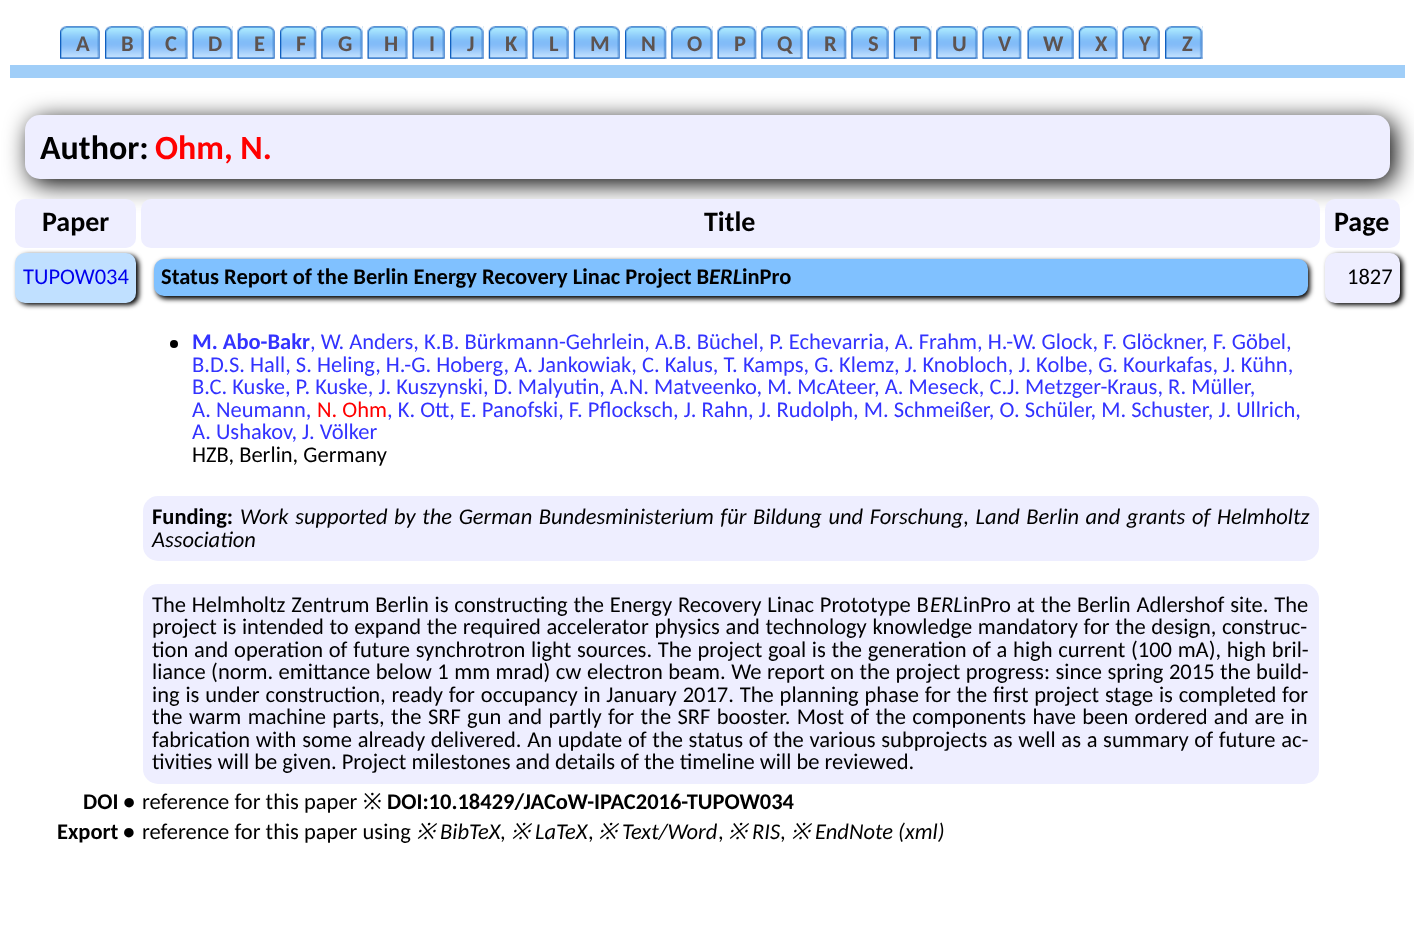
async function draw(canvas) {
  canvas.width = 1414
  canvas.height = 940
  const ctx = canvas.getContext('2d')
  ctx.miterLimit = 4
  ctx.fontKerning = 'normal'
  async function loadImage(src) {
    const img = new Image()
    img.src = src
    await img.decode()
    return img
  }

  ctx.fillStyle = '#fff'
  ctx.fillRect(0, 0, 1414, 940)
  ctx.fillStyle = '#a0cef8'
  ctx.fillRect(10, 65, 1395, 13)
  ctx.drawImage(await loadImage('image0.png'), 60, 26, 7, 33)
  ctx.drawImage(await loadImage('image1.png'), 66, 26, 34, 33)
  ctx.drawImage(await loadImage('image2.png'), 105, 26, 39, 33)
  ctx.drawImage(await loadImage('image3.png'), 111, 26, 33, 33)
  ctx.drawImage(await loadImage('image4.png'), 148, 26, 40, 33)
  ctx.drawImage(await loadImage('image5.png'), 155, 26, 33, 33)
  ctx.drawImage(await loadImage('image6.png'), 192, 26, 41, 33)
  ctx.drawImage(await loadImage('image7.png'), 198, 26, 35, 33)
  ctx.drawImage(await loadImage('image8.png'), 237, 26, 7, 33)
  ctx.drawImage(await loadImage('image9.png'), 243, 26, 32, 33)
  ctx.drawImage(await loadImage('image10.png'), 280, 26, 37, 33)
  ctx.drawImage(await loadImage('image11.png'), 286, 26, 31, 33)
  ctx.drawImage(await loadImage('image12.png'), 321, 26, 42, 33)
  ctx.drawImage(await loadImage('image13.png'), 327, 26, 36, 33)
  ctx.drawImage(await loadImage('image6.png'), 367, 26, 41, 33)
  ctx.drawImage(await loadImage('image7.png'), 373, 26, 35, 33)
  ctx.drawImage(await loadImage('image8.png'), 412, 26, 7, 33)
  ctx.drawImage(await loadImage('image14.png'), 418, 26, 27, 33)
  ctx.drawImage(await loadImage('image15.png'), 450, 26, 34, 33)
  ctx.drawImage(await loadImage('image16.png'), 456, 26, 28, 33)
  ctx.drawImage(await loadImage('image17.png'), 488, 26, 40, 33)
  ctx.drawImage(await loadImage('image18.png'), 495, 26, 33, 33)
  ctx.drawImage(await loadImage('image19.png'), 532, 26, 37, 33)
  ctx.drawImage(await loadImage('image20.png'), 538, 26, 31, 33)
  ctx.drawImage(await loadImage('image21.png'), 573, 26, 7, 33)
  ctx.drawImage(await loadImage('image22.png'), 580, 26, 40, 33)
  ctx.drawImage(await loadImage('image23.png'), 625, 26, 42, 33)
  ctx.drawImage(await loadImage('image24.png'), 631, 26, 36, 33)
  ctx.drawImage(await loadImage('image25.png'), 671, 26, 42, 33)
  ctx.drawImage(await loadImage('image26.png'), 677, 26, 36, 33)
  ctx.drawImage(await loadImage('image27.png'), 717, 26, 40, 33)
  ctx.drawImage(await loadImage('image28.png'), 723, 26, 34, 33)
  ctx.drawImage(await loadImage('image29.png'), 761, 26, 42, 33)
  ctx.drawImage(await loadImage('image30.png'), 767, 26, 36, 33)
  ctx.drawImage(await loadImage('image31.png'), 807, 26, 40, 33)
  ctx.drawImage(await loadImage('image32.png'), 813, 26, 34, 33)
  ctx.drawImage(await loadImage('image33.png'), 851, 26, 38, 33)
  ctx.drawImage(await loadImage('image34.png'), 857, 26, 32, 33)
  ctx.drawImage(await loadImage('image35.png'), 893, 26, 39, 33)
  ctx.drawImage(await loadImage('image36.png'), 900, 26, 32, 33)
  ctx.drawImage(await loadImage('image37.png'), 936, 26, 42, 33)
  ctx.drawImage(await loadImage('image38.png'), 942, 26, 36, 33)
  ctx.drawImage(await loadImage('image39.png'), 982, 26, 40, 33)
  ctx.drawImage(await loadImage('image40.png'), 988, 26, 34, 33)
  ctx.drawImage(await loadImage('image41.png'), 1027, 26, 47, 33)
  ctx.drawImage(await loadImage('image42.png'), 1033, 26, 41, 33)
  ctx.drawImage(await loadImage('image43.png'), 1078, 26, 40, 33)
  ctx.drawImage(await loadImage('image44.png'), 1085, 26, 33, 33)
  ctx.drawImage(await loadImage('image45.png'), 1122, 26, 7, 33)
  ctx.drawImage(await loadImage('image46.png'), 1128, 26, 32, 33)
  ctx.drawImage(await loadImage('image47.png'), 1165, 26, 38, 33)
  ctx.font = 'bold 22.5px Carlito'
  ctx.fillStyle = '#5d5350'
  ctx.fillText('A', 76, 51)
  ctx.fillText('B', 121, 51)
  ctx.fillText('C', 165, 51)
  ctx.fillText('D', 208, 51)
  ctx.fillText('E', 254, 51)
  ctx.fillText('F', 296, 51)
  ctx.fillText('G', 338, 51)
  ctx.fillText('H', 384, 51)
  ctx.fillText('I', 429, 51)
  ctx.fillText('J', 467, 51)
  ctx.fillText('K', 505, 51)
  ctx.fillText('L', 549, 51)
  ctx.fillText('M', 590, 51)
  ctx.fillText('N', 641, 51)
  ctx.fillText('O', 687, 51)
  ctx.fillText('P', 734, 51)
  ctx.fillText('Q', 777, 51)
  ctx.fillText('R', 824, 51)
  ctx.fillText('S', 868, 51)
  ctx.fillText('T', 910, 51)
  ctx.fillText('U', 952, 51)
  ctx.fillText('V', 998, 51)
  ctx.fillText('W', 1043, 51)
  ctx.fillText('X', 1095, 51)
  ctx.fillText('Y', 1139, 51)
  ctx.drawImage(await loadImage('image48.png'), 1171, 26, 32, 33)
  ctx.fillText('Z', 1182, 51)
  ctx.fillStyle = '#000'
  ctx.filter = 'blur(12.5px)'
  ctx.beginPath()
  ctx.roundRect(30, 120, 1365, 64, 15)
  ctx.fill()
  ctx.filter = 'none'
  ctx.fillStyle = '#eef'
  ctx.beginPath()
  ctx.roundRect(25, 115, 1365, 64, 15)
  ctx.fill()
  ctx.font = 'bold 34px Carlito'
  ctx.fillStyle = '#000'
  ctx.fillText('Author:', 40, 159)
  ctx.fillStyle = '#f00'
  ctx.fillText('Ohm, N.', 155, 159)
  ctx.fillStyle = '#eef'
  ctx.beginPath()
  ctx.roundRect(15, 199, 121, 49, 10)
  ctx.fill()
  ctx.font = 'bold 28px Carlito'
  ctx.fillStyle = '#000'
  ctx.fillText('Paper', 42, 231)
  ctx.fillStyle = '#eef'
  ctx.beginPath()
  ctx.roundRect(141, 199, 1179, 49, 10)
  ctx.fill()
  ctx.fillStyle = '#000'
  ctx.fillText('Title', 704, 231)
  ctx.fillStyle = '#eef'
  ctx.beginPath()
  ctx.roundRect(1325, 199, 75, 49, 10)
  ctx.fill()
  ctx.fillStyle = '#000'
  ctx.fillText('Page', 1334, 231)
  ctx.filter = 'blur(2.5px)'
  ctx.beginPath()
  ctx.roundRect(18, 255, 121, 50, 10)
  ctx.fill()
  ctx.filter = 'none'
  ctx.fillStyle = '#c0e0ff'
  ctx.beginPath()
  ctx.roundRect(15, 253, 121, 50, 10)
  ctx.fill()
  ctx.font = '22.5px Carlito'
  ctx.fillStyle = '#00e'
  ctx.fillText('TUPOW034', 23, 284)
  ctx.fillStyle = '#000'
  ctx.filter = 'blur(2.5px)'
  ctx.beginPath()
  ctx.roundRect(156, 261, 1154, 38, 10)
  ctx.fill()
  ctx.filter = 'none'
  ctx.fillStyle = '#80c1ff'
  ctx.beginPath()
  ctx.roundRect(154, 259, 1154, 37, 10)
  ctx.fill()
  ctx.font = 'bold 22.5px Carlito'
  ctx.fillStyle = '#000'
  ctx.fillText('Status Report of the Berlin Energy Recovery Linac Project B', 161, 284)
  ctx.font = 'italic bold 22.5px Carlito'
  ctx.fillText('ERL', 709, 284)
  ctx.font = 'bold 22.5px Carlito'
  ctx.fillText('inPro', 742, 284)
  ctx.filter = 'blur(2.5px)'
  ctx.beginPath()
  ctx.roundRect(1328, 255, 75, 50, 10)
  ctx.fill()
  ctx.filter = 'none'
  ctx.fillStyle = '#eef'
  ctx.beginPath()
  ctx.roundRect(1325, 253, 75, 50, 10)
  ctx.fill()
  ctx.font = '22.5px Carlito'
  ctx.fillStyle = '#000'
  ctx.fillText('1827', 1347, 284)
  ctx.beginPath()
  ctx.arc(174, 344, 4, 0, 2 * Math.PI)
  ctx.fill()
  ctx.font = 'bold 22.5px Carlito'
  ctx.fillStyle = '#33f'
  ctx.fillText('M. Abo-Bakr', 192, 349)
  ctx.font = '22.5px Carlito'
  ctx.fillText(', W. Anders, K.B. Bürkmann-Gehrlein, A.B. Büchel, P. Echevarria, A. Frahm, H.-W. Glock, F. Glöckner, F. Göbel,', 310, 349)
  ctx.fillText('B.D.S. Hall, S. Heling, H.-G. Hoberg, A. Jankowiak, C. Kalus, T. Kamps, G. Klemz, J. Knobloch, J. Kolbe, G. Kourkafas, J. Kühn,', 192, 372)
  ctx.fillText('B.C. Kuske, P. Kuske, J. Kuszynski, D. Malyutin, A.N. Matveenko, M. McAteer, A. Meseck, C.J. Metzger-Kraus, R. Müller,', 192, 394)
  ctx.fillText('A. Neumann,', 192, 417)
  ctx.fillStyle = '#f00'
  ctx.fillText('N. Ohm', 317, 417)
  ctx.fillStyle = '#33f'
  ctx.fillText(', K. Ott, E. Panofski, F. Pflocksch, J. Rahn, J. Rudolph, M. Schmeißer, O. Schüler, M. Schuster, J. Ullrich,', 387, 417)
  ctx.fillText('A. Ushakov, J. Völker', 192, 439)
  ctx.fillStyle = '#000'
  ctx.fillText('HZB, Berlin, Germany', 192, 462)
  ctx.fillStyle = '#eef'
  ctx.beginPath()
  ctx.roundRect(143, 496, 1176, 65, 15)
  ctx.fill()
  ctx.font = 'bold 22.5px Carlito'
  ctx.fillStyle = '#000'
  ctx.fillText('Funding:', 152, 524)
  ctx.wordSpacing = '1.5px'
  ctx.font = 'italic 22.5px Carlito'
  ctx.fillText('Work supported by the German Bundesministerium für Bildung und Forschung, Land Berlin and grants of Helmholtz', 240, 524)
  ctx.wordSpacing = '0px'
  ctx.fillText('Association', 152, 547)
  ctx.fillStyle = '#eef'
  ctx.beginPath()
  ctx.roundRect(143, 584, 1176, 200, 15)
  ctx.fill()
  ctx.wordSpacing = '0.75px'
  ctx.font = '22.5px Carlito'
  ctx.fillStyle = '#000'
  ctx.fillText('The Helmholtz Zentrum Berlin is constructing the Energy Recovery Linac Prototype B', 152, 612)
  ctx.wordSpacing = '0px'
  ctx.font = 'italic 22.5px Carlito'
  ctx.fillText('ERL', 930, 612)
  ctx.wordSpacing = '0.75px'
  ctx.font = '22.5px Carlito'
  ctx.fillText('inPro at the Berlin Adlershof site. The', 963, 612)
  ctx.wordSpacing = '0.5px'
  ctx.fillText('project is intended to expand the required accelerator physics and technology knowledge mandatory for the design, construc-', 152, 634)
  ctx.wordSpacing = '0.6px'
  ctx.fillText('tion and operation of future synchrotron light sources. The project goal is the generation of a high current (100 mA), high bril-', 152, 657)
  ctx.wordSpacing = '0.4px'
  ctx.fillText('liance (norm. emittance below 1 mm mrad) cw electron beam. We report on the project progress: since spring 2015 the build-', 152, 679)
  ctx.wordSpacing = '0.75px'
  ctx.fillText('ing is under construction, ready for occupancy in January 2017. The planning phase for the first project stage is completed for', 152, 702)
  ctx.wordSpacing = '1.25px'
  ctx.fillText('the warm machine parts, the SRF gun and partly for the SRF booster. Most of the components have been ordered and are in', 152, 724)
  ctx.wordSpacing = '0.6px'
  ctx.fillText('fabrication with some already delivered. An update of the status of the various subprojects as well as a summary of future ac-', 152, 747)
  ctx.wordSpacing = '0px'
  ctx.fillText('tivities will be given. Project milestones and details of the timeline will be reviewed.', 152, 769)
  ctx.font = 'bold 22.5px Carlito'
  ctx.fillText('DOI •', 83, 809)
  ctx.font = '22.5px Carlito'
  ctx.fillText('reference for this paper', 142, 809)
  ctx.font = '22.5px Noto Sans'
  ctx.fillText('※', 363, 809)
  ctx.font = 'bold 22.5px Carlito'
  ctx.fillText('DOI:10.18429/JACoW-IPAC2016-TUPOW034', 387, 809)
  ctx.fillText('Export •', 57, 839)
  ctx.font = '22.5px Carlito'
  ctx.fillText('reference for this paper using', 142, 839)
  ctx.font = 'italic 22.5px Noto Sans'
  ctx.fillText('※', 416, 839)
  ctx.font = 'italic 22.5px Carlito'
  ctx.fillText('BibTeX', 440, 839)
  ctx.font = '22.5px Carlito'
  ctx.fillText(',', 500, 839)
  ctx.font = 'italic 22.5px Noto Sans'
  ctx.fillText('※', 511, 839)
  ctx.font = 'italic 22.5px Carlito'
  ctx.fillText('LaTeX', 535, 839)
  ctx.font = '22.5px Carlito'
  ctx.fillText(',', 588, 839)
  ctx.font = 'italic 22.5px Noto Sans'
  ctx.fillText('※', 598, 839)
  ctx.font = 'italic 22.5px Carlito'
  ctx.fillText('Text/Word', 622, 839)
  ctx.font = '22.5px Carlito'
  ctx.fillText(',', 718, 839)
  ctx.font = 'italic 22.5px Noto Sans'
  ctx.fillText('※', 728, 839)
  ctx.font = 'italic 22.5px Carlito'
  ctx.fillText('RIS', 752, 839)
  ctx.font = '22.5px Carlito'
  ctx.fillText(',', 780, 839)
  ctx.font = 'italic 22.5px Noto Sans'
  ctx.fillText('※', 791, 839)
  ctx.font = 'italic 22.5px Carlito'
  ctx.fillText('EndNote (xml)', 815, 839)
}

draw(document.querySelector('canvas'))
